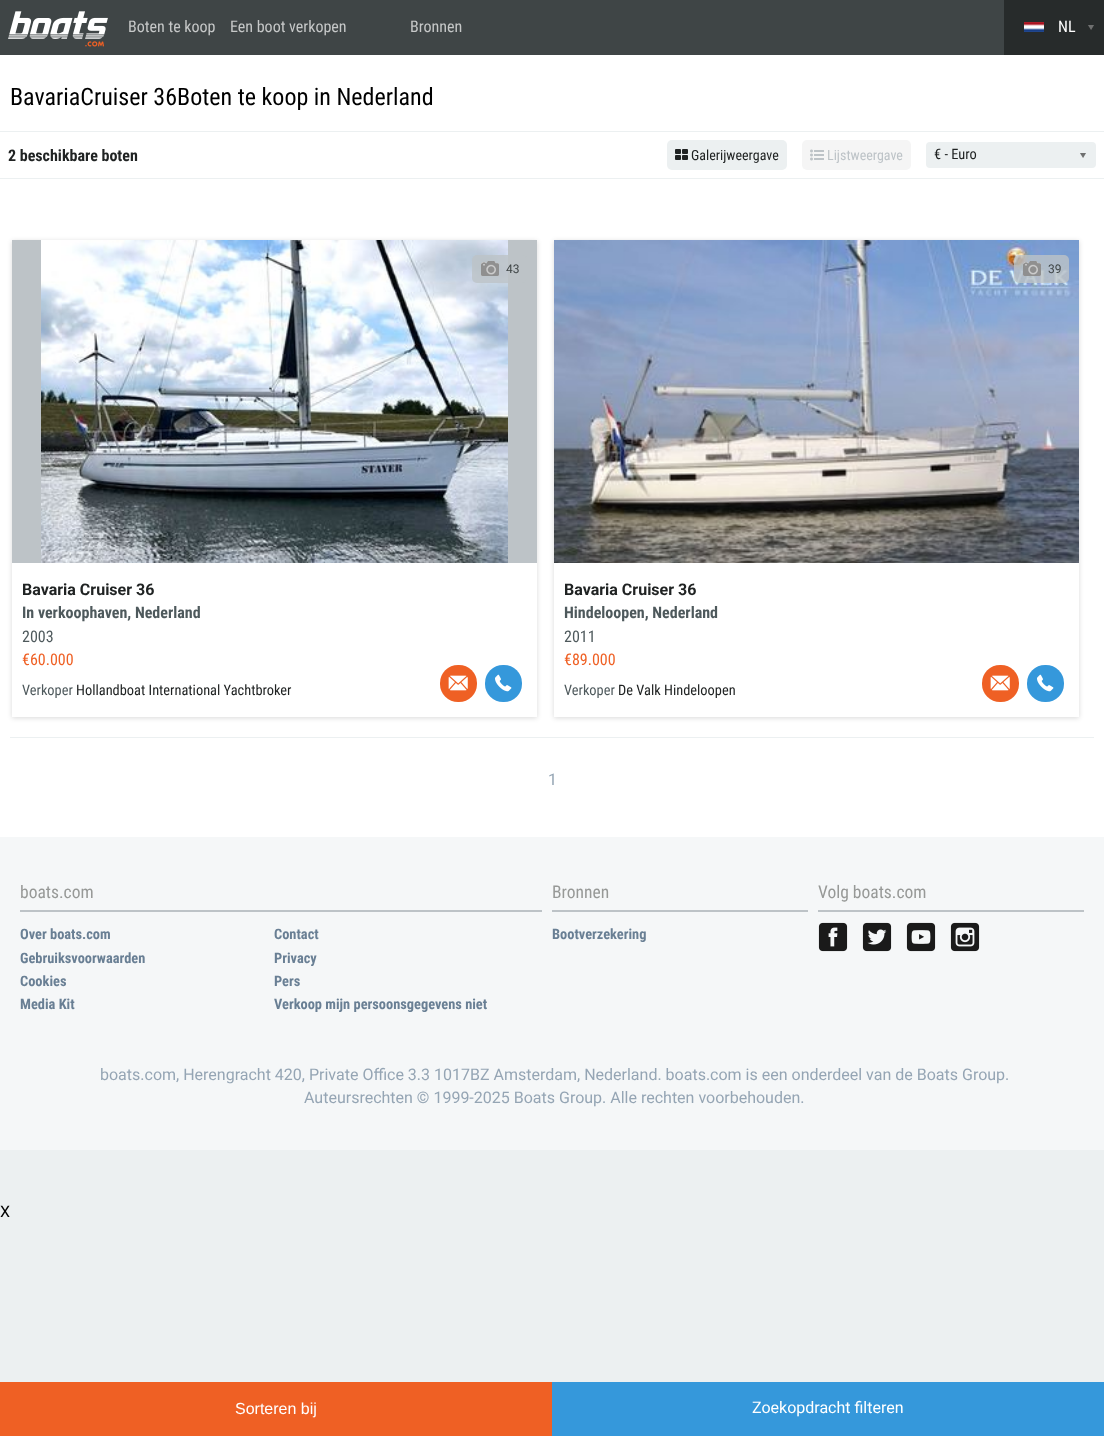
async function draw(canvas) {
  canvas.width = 1104
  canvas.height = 1436
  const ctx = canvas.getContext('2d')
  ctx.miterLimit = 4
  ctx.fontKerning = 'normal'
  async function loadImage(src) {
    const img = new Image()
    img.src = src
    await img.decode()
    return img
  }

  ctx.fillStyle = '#ecf0f1'
  ctx.fillRect(0, 0, 1104, 1436)
  ctx.font = '16px Roboto'
  ctx.fillStyle = '#000'
  ctx.fillText('X', 0, 1217)
  ctx.fillStyle = '#3f4546'
  ctx.fillRect(0, 0, 1004, 55)
  ctx.drawImage(await loadImage('image0.png'), 8, 11, 100, 36)
  ctx.font = '16px Roboto Condensed'
  ctx.fillStyle = '#c6c8c8'
  ctx.fillText('Boten te koop', 128, 32)
  ctx.fillText('Een boot verkopen', 230, 32)
  ctx.fillText('Bronnen', 410, 32)
  ctx.fillStyle = '#272b2b'
  ctx.fillRect(1004, 0, 100, 55)
  ctx.drawImage(await loadImage('image1.png'), 1024, 22, 20, 10)
  ctx.fillStyle = '#fff'
  ctx.fillText('NL', 1058, 32)
  ctx.drawImage(await loadImage('image2.png'), 1088, 25, 6, 5)
  ctx.fillRect(0, 55, 1104, 782)
  ctx.font = '24px Roboto Condensed'
  ctx.fillStyle = '#000'
  ctx.fillText('BavariaCruiser 36Boten te koop in Nederland', 10, 105)
  ctx.fillStyle = '#ecf0f1'
  ctx.fillRect(0, 131, 1104, 1)
  ctx.fillRect(0, 178, 1104, 1)
  ctx.font = 'bold 16px Roboto Condensed'
  ctx.fillStyle = '#202323'
  ctx.fillText('2 beschikbare boten', 8, 161)
  ctx.fillStyle = '#ecf0f1'
  ctx.beginPath()
  ctx.roundRect(667, 140, 120, 30, 5)
  ctx.fill()
  ctx.drawImage(await loadImage('image3.png'), 675, 149, 13, 11)
  ctx.font = '14px Roboto Condensed'
  ctx.fillStyle = '#202323'
  ctx.fillText('Galerijweergave', 691, 160)
  ctx.fillStyle = '#f5f5f5'
  ctx.beginPath()
  ctx.roundRect(802, 140, 109, 30, 5)
  ctx.fill()
  ctx.drawImage(await loadImage('image4.png'), 810, 149, 14, 12)
  ctx.fillStyle = '#bdc3c7'
  ctx.fillText('Lijstweergave', 827, 160)
  ctx.fillStyle = '#ecf0f1'
  ctx.beginPath()
  ctx.roundRect(926, 142, 170, 26, 4)
  ctx.fill()
  ctx.font = '14.4px Roboto Condensed'
  ctx.fillStyle = '#202323'
  ctx.fillText('€ - Euro', 934, 159)
  ctx.drawImage(await loadImage('image5.png'), 1080, 153, 6, 5)
  ctx.fillStyle = '#00000026'
  ctx.filter = 'blur(2.5px)'
  ctx.beginPath()
  ctx.rect(12, 241, 525, 477)
  ctx.fill()
  ctx.filter = 'none'
  ctx.fillStyle = '#bdc3c7'
  ctx.fillRect(12, 240, 525, 323)
  ctx.drawImage(await loadImage('image6.png'), 41, 240, 467, 323)
  ctx.fillStyle = '#bdc3c7cc'
  ctx.beginPath()
  ctx.roundRect(472, 255, 55, 28, 5)
  ctx.fill()
  ctx.drawImage(await loadImage('image7.png'), 481, 261, 18, 15)
  ctx.font = '12px Roboto'
  ctx.fillStyle = '#3f4546'
  ctx.fillText('43', 506, 273)
  ctx.fillStyle = '#fff'
  ctx.fillRect(12, 563, 525, 154)
  ctx.font = 'bold 16px Roboto'
  ctx.fillStyle = '#202323'
  ctx.fillText('Bavaria Cruiser 36', 22, 595)
  ctx.font = 'bold 16px Roboto Condensed'
  ctx.fillStyle = '#4e595c'
  ctx.fillText('In verkoophaven, Nederland', 22, 618)
  ctx.font = '16px Roboto Condensed'
  ctx.fillText('2003', 22, 642)
  ctx.fillStyle = '#ef6024'
  ctx.fillText('€60.000', 22, 665)
  ctx.font = '14.4px Roboto Condensed'
  ctx.fillStyle = '#4e595c'
  ctx.fillText('Verkoper', 22, 695)
  ctx.fillStyle = '#202323'
  ctx.fillText('Hollandboat International Yachtbroker', 76, 695)
  ctx.fillStyle = '#ef6024'
  ctx.beginPath()
  ctx.roundRect(440, 665, 37, 37, 18)
  ctx.fill()
  ctx.drawImage(await loadImage('image8.png'), 448, 675, 20, 16)
  ctx.fillStyle = '#3598db'
  ctx.beginPath()
  ctx.roundRect(485, 665, 37, 37, 18)
  ctx.fill()
  ctx.drawImage(await loadImage('image9.png'), 495, 674, 17, 18)
  ctx.fillStyle = '#00000026'
  ctx.filter = 'blur(2.5px)'
  ctx.beginPath()
  ctx.rect(554, 241, 525, 477)
  ctx.fill()
  ctx.filter = 'none'
  ctx.drawImage(await loadImage('image10.png'), 554, 240, 525, 323)
  ctx.fillStyle = '#bdc3c7cc'
  ctx.beginPath()
  ctx.roundRect(1014, 255, 55, 28, 5)
  ctx.fill()
  ctx.drawImage(await loadImage('image11.png'), 1023, 261, 18, 15)
  ctx.font = '12px Roboto'
  ctx.fillStyle = '#3f4546'
  ctx.fillText('39', 1048, 273)
  ctx.fillStyle = '#fff'
  ctx.fillRect(554, 563, 525, 154)
  ctx.font = 'bold 16px Roboto'
  ctx.fillStyle = '#202323'
  ctx.fillText('Bavaria Cruiser 36', 564, 595)
  ctx.font = 'bold 16px Roboto Condensed'
  ctx.fillStyle = '#4e595c'
  ctx.fillText('Hindeloopen, Nederland', 564, 618)
  ctx.font = '16px Roboto Condensed'
  ctx.fillText('2011', 564, 642)
  ctx.fillStyle = '#ef6024'
  ctx.fillText('€89.000', 564, 665)
  ctx.font = '14.4px Roboto Condensed'
  ctx.fillStyle = '#4e595c'
  ctx.fillText('Verkoper', 564, 695)
  ctx.fillStyle = '#202323'
  ctx.fillText('De Valk Hindeloopen', 618, 695)
  ctx.fillStyle = '#ef6024'
  ctx.beginPath()
  ctx.roundRect(982, 665, 37, 37, 18)
  ctx.fill()
  ctx.drawImage(await loadImage('image8.png'), 990, 675, 20, 16)
  ctx.fillStyle = '#3598db'
  ctx.beginPath()
  ctx.roundRect(1027, 665, 37, 37, 18)
  ctx.fill()
  ctx.drawImage(await loadImage('image9.png'), 1037, 674, 17, 18)
  ctx.fillStyle = '#ecf0f1'
  ctx.fillRect(10, 737, 1084, 1)
  ctx.font = '16px Roboto'
  ctx.fillStyle = '#95a5b4'
  ctx.fillText('1', 548, 785)
  ctx.fillStyle = '#ef6024'
  ctx.fillRect(0, 1382, 552, 54)
  ctx.font = '16px Liberation Sans'
  ctx.fillStyle = '#fff'
  ctx.fillText('Sorteren bij', 235, 1414)
  ctx.fillStyle = '#3598db'
  ctx.fillRect(552, 1382, 552, 54)
  ctx.font = '16px Roboto'
  ctx.fillStyle = '#fff'
  ctx.fillText('Zoekopdracht filteren', 752, 1413)
  ctx.fillStyle = '#f5f7f8'
  ctx.fillRect(0, 837, 1104, 313)
  ctx.fillStyle = '#bdc3c7'
  ctx.fillRect(20, 910, 522, 2)
  ctx.font = '17.5px Roboto Condensed'
  ctx.fillStyle = '#979997'
  ctx.fillText('boats.com', 20, 898)
  ctx.font = 'bold 14.4px Roboto Condensed'
  ctx.fillStyle = '#697f94'
  ctx.fillText('Over boats.com', 20, 939)
  ctx.fillText('Contact', 274, 939)
  ctx.fillText('Gebruiksvoorwaarden', 20, 963)
  ctx.fillText('Privacy', 274, 963)
  ctx.fillText('Cookies', 20, 986)
  ctx.fillText('Pers', 274, 986)
  ctx.fillText('Media Kit', 20, 1009)
  ctx.fillText('Verkoop mijn persoonsgegevens niet', 274, 1009)
  ctx.fillStyle = '#bdc3c7'
  ctx.fillRect(552, 910, 256, 2)
  ctx.font = '17.5px Roboto Condensed'
  ctx.fillStyle = '#979997'
  ctx.fillText('Bronnen', 552, 898)
  ctx.font = 'bold 14.4px Roboto Condensed'
  ctx.fillStyle = '#697f94'
  ctx.fillText('Bootverzekering', 552, 939)
  ctx.fillStyle = '#bdc3c7'
  ctx.fillRect(818, 910, 266, 2)
  ctx.font = '17.5px Roboto Condensed'
  ctx.fillStyle = '#979997'
  ctx.fillText('Volg boats.com', 818, 898)
  ctx.drawImage(await loadImage('image12.png'), 818, 922, 30, 30)
  ctx.drawImage(await loadImage('image13.png'), 862, 922, 30, 30)
  ctx.drawImage(await loadImage('image14.png'), 906, 922, 30, 30)
  ctx.drawImage(await loadImage('image15.png'), 950, 922, 30, 30)
  ctx.font = '16px Roboto'
  ctx.fillStyle = '#95a5b4'
  ctx.fillText('boats.com, Herengracht 420, Private Office 3.3 1017BZ Amsterdam, Nederland. boats.com is een onderdeel van de Boats Group.', 100, 1080)
  ctx.fillText('Auteursrechten © 1999-2025 Boats Group. Alle rechten voorbehouden.', 304, 1103)
}

draw(document.querySelector('canvas'))
